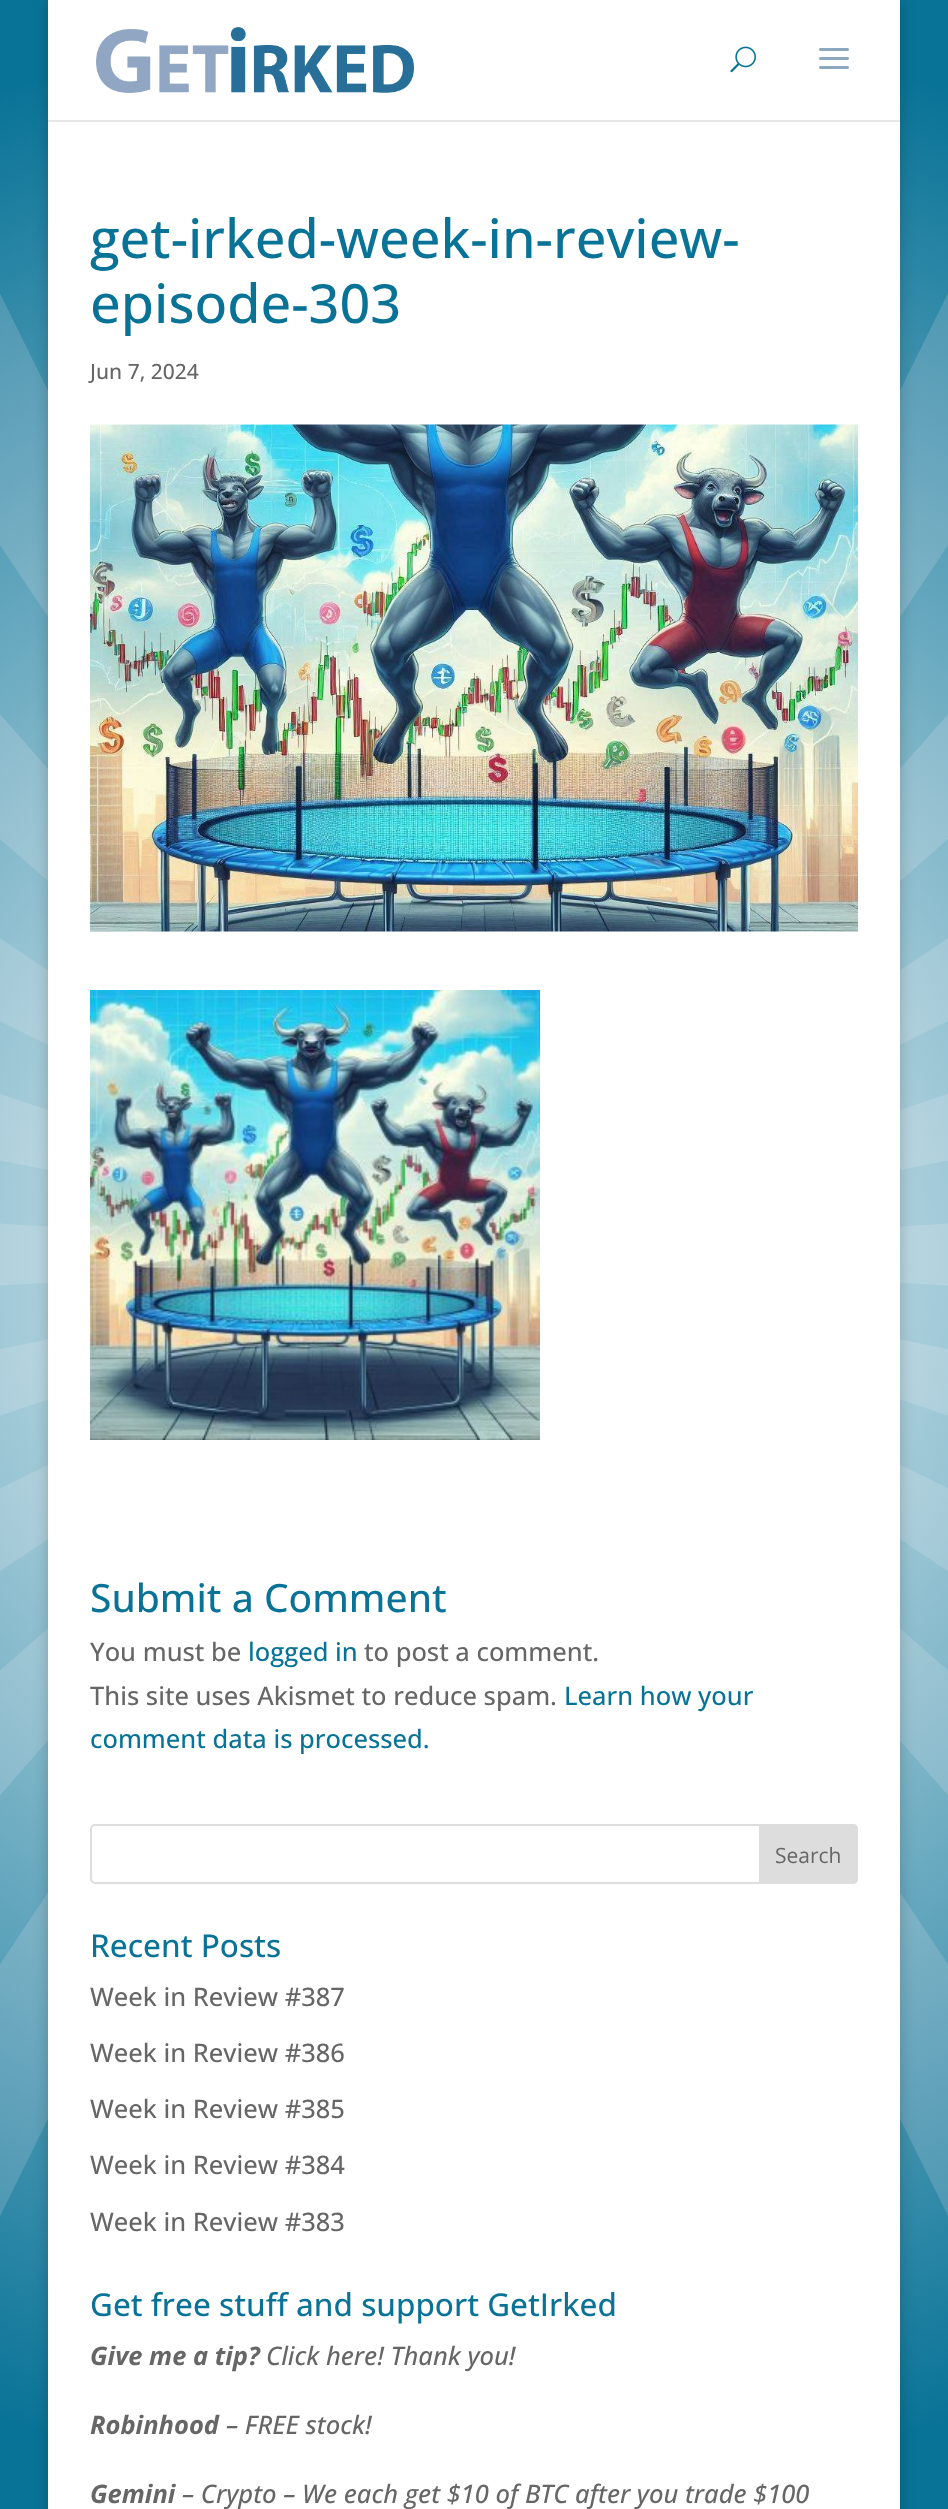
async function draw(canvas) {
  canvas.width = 948
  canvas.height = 2509
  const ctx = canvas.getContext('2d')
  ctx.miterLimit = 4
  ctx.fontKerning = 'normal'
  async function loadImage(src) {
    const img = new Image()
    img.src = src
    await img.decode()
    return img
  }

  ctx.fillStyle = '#fff'
  ctx.fillRect(0, 0, 948, 2509)
  ctx.drawImage(await loadImage('image0.png'), 0, 0, 948, 2509)
  ctx.fillStyle = '#00000033'
  ctx.filter = 'blur(7.5px)'
  ctx.beginPath()
  ctx.rect(48, 0, 852, 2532)
  ctx.fill()
  ctx.filter = 'none'
  ctx.fillStyle = '#e6e6e6'
  ctx.fillRect(48, 120, 852, 2)
  ctx.fillStyle = '#fff'
  ctx.fillRect(48, 0, 852, 120)
  ctx.drawImage(await loadImage('image1.png'), 96, 27, 318, 66)
  ctx.drawImage(await loadImage('image2.png'), 730, 46, 26, 27)
  ctx.drawImage(await loadImage('image3.png'), 819, 48, 30, 21)
  ctx.fillRect(48, 122, 852, 2387)
  ctx.font = '500 54px Open Sans'
  ctx.fillStyle = '#097397'
  ctx.fillText('get-irked-week-in-review-', 90, 258)
  ctx.fillText('episode-303', 90, 323)
  ctx.font = '500 21px Open Sans'
  ctx.fillStyle = '#666'
  ctx.fillText('Jun 7, 2024', 90, 379)
  ctx.drawImage(await loadImage('image4.png'), 90, 424, 768, 508)
  ctx.drawImage(await loadImage('image5.png'), 90, 990, 450, 450)
  ctx.font = '500 39px Open Sans'
  ctx.fillStyle = '#097397'
  ctx.fillText('Submit a Comment', 90, 1612)
  ctx.font = '500 25.5px Open Sans'
  ctx.fillStyle = '#666'
  ctx.fillText('You must be', 90, 1661)
  ctx.fillStyle = '#097397'
  ctx.fillText('logged in', 248, 1661)
  ctx.fillStyle = '#666'
  ctx.fillText('to post a comment.', 364, 1661)
  ctx.fillText('This site uses Akismet to reduce spam.', 90, 1705)
  ctx.fillStyle = '#097397'
  ctx.fillText('Learn how your', 564, 1705)
  ctx.fillText('comment data is processed.', 90, 1748)
  ctx.beginPath()
  ctx.roundRect(91, 1825, 766, 58, 4)
  ctx.strokeStyle = '#ddd'
  ctx.lineWidth = 2
  ctx.stroke()
  ctx.fillStyle = '#ddd'
  ctx.beginPath()
  ctx.roundRect(760, 1825, 97, 58, [0, 4, 4, 0])
  ctx.fill()
  ctx.stroke()
  ctx.font = '21px Open Sans'
  ctx.fillStyle = '#666'
  ctx.fillText('Search', 775, 1863)
  ctx.font = '500 31.5px Open Sans'
  ctx.fillStyle = '#097397'
  ctx.fillText('Recent Posts', 90, 1957)
  ctx.font = '500 25.5px Open Sans'
  ctx.fillStyle = '#666'
  ctx.fillText('Week in Review #387', 90, 2006)
  ctx.fillText('Week in Review #386', 90, 2062)
  ctx.fillText('Week in Review #385', 90, 2118)
  ctx.fillText('Week in Review #384', 90, 2174)
  ctx.fillText('Week in Review #383', 90, 2231)
  ctx.font = '500 31.5px Open Sans'
  ctx.fillStyle = '#097397'
  ctx.fillText('Get free stuff and support GetIrked', 90, 2316)
  ctx.font = 'italic bold 25.5px Open Sans'
  ctx.fillStyle = '#666'
  ctx.fillText('Give me a tip?', 90, 2365)
  ctx.font = 'italic 500 25.5px Open Sans'
  ctx.fillText('Click here! Thank you!', 266, 2365)
  ctx.font = 'italic bold 25.5px Open Sans'
  ctx.fillText('Robinhood', 90, 2434)
  ctx.font = 'italic 500 25.5px Open Sans'
  ctx.fillText('– FREE stock!', 226, 2434)
  ctx.font = 'italic bold 25.5px Open Sans'
  ctx.fillText('Gemini', 90, 2503)
  ctx.font = 'italic 500 25.5px Open Sans'
  ctx.fillText('– Crypto – We each get $10 of BTC after you trade $100', 182, 2503)
}

draw(document.querySelector('canvas'))
